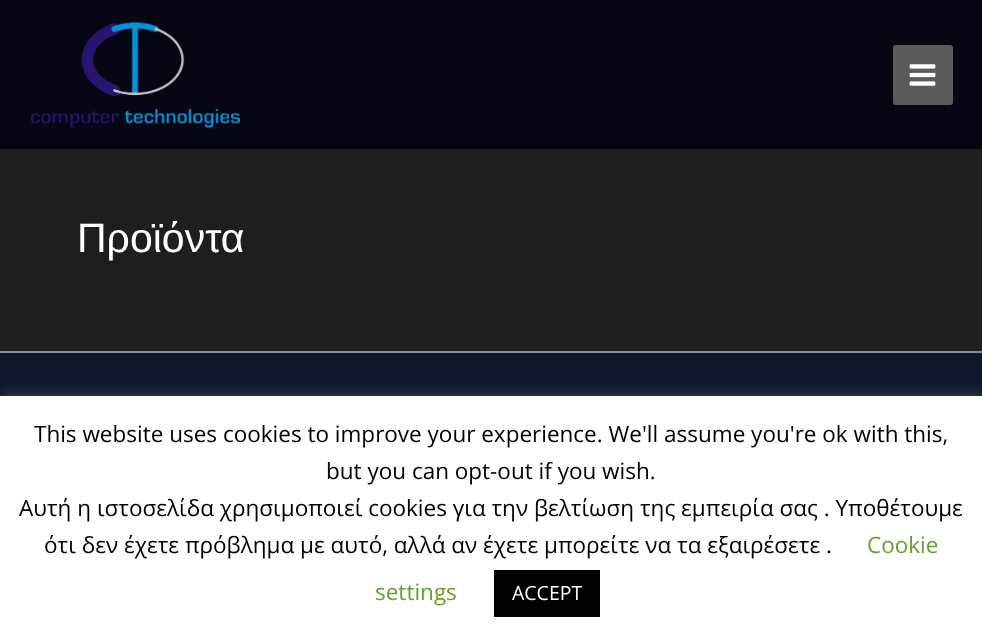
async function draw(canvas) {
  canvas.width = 982
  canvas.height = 641
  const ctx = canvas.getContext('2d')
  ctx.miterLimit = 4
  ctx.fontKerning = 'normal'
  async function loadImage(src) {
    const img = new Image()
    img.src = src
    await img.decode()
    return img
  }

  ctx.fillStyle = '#1e1e1e'
  ctx.fillRect(0, 0, 982, 641)
  ctx.fillStyle = '#070614'
  ctx.fillRect(0, 0, 982, 149)
  ctx.drawImage(await loadImage('image0.png'), 30, 22, 210, 106)
  ctx.fillStyle = '#5b5b5b'
  ctx.beginPath()
  ctx.roundRect(893, 45, 60, 60, 3)
  ctx.fill()
  ctx.drawImage(await loadImage('image1.png'), 909, 64, 27, 22)
  ctx.font = '41px Liberation Sans'
  ctx.fillStyle = '#fff'
  ctx.fillText('Προϊόντα', 77, 252)
  ctx.fillStyle = '#0f172a'
  ctx.fillRect(0, 353, 982, 43)
  ctx.fillStyle = '#8a8d95'
  ctx.fillRect(0, 351, 982, 2)
  ctx.fillStyle = '#acabab4d'
  ctx.filter = 'blur(7.5px)'
  ctx.beginPath()
  ctx.rect(0, 395, 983, 246)
  ctx.fill()
  ctx.filter = 'none'
  ctx.fillStyle = '#fff'
  ctx.fillRect(0, 396, 982, 245)
  ctx.font = '22.5px Open Sans'
  ctx.fillStyle = '#000'
  ctx.fillText('This website uses cookies to improve your experience. We\'ll assume you\'re ok with this,', 34, 442)
  ctx.fillText('but you can opt-out if you wish.', 326, 479)
  ctx.fillText('Αυτή η ιστοσελίδα χρησιμοποιεί cookies για την βελτίωση της εμπειρία σας . Υποθέτουμε', 19, 516)
  ctx.fillText('ότι δεν έχετε πρόβλημα με αυτό, αλλά αν έχετε μπορείτε να τα εξαιρέσετε .', 44, 553)
  ctx.fillStyle = '#62a329'
  ctx.fillText('Cookie', 867, 553)
  ctx.fillText('settings', 375, 600)
  ctx.fillStyle = '#000'
  ctx.fillRect(494, 570, 106, 47)
  ctx.font = '19.5px Open Sans'
  ctx.fillStyle = '#fff'
  ctx.fillText('ACCEPT', 512, 600)
}

draw(document.querySelector('canvas'))
